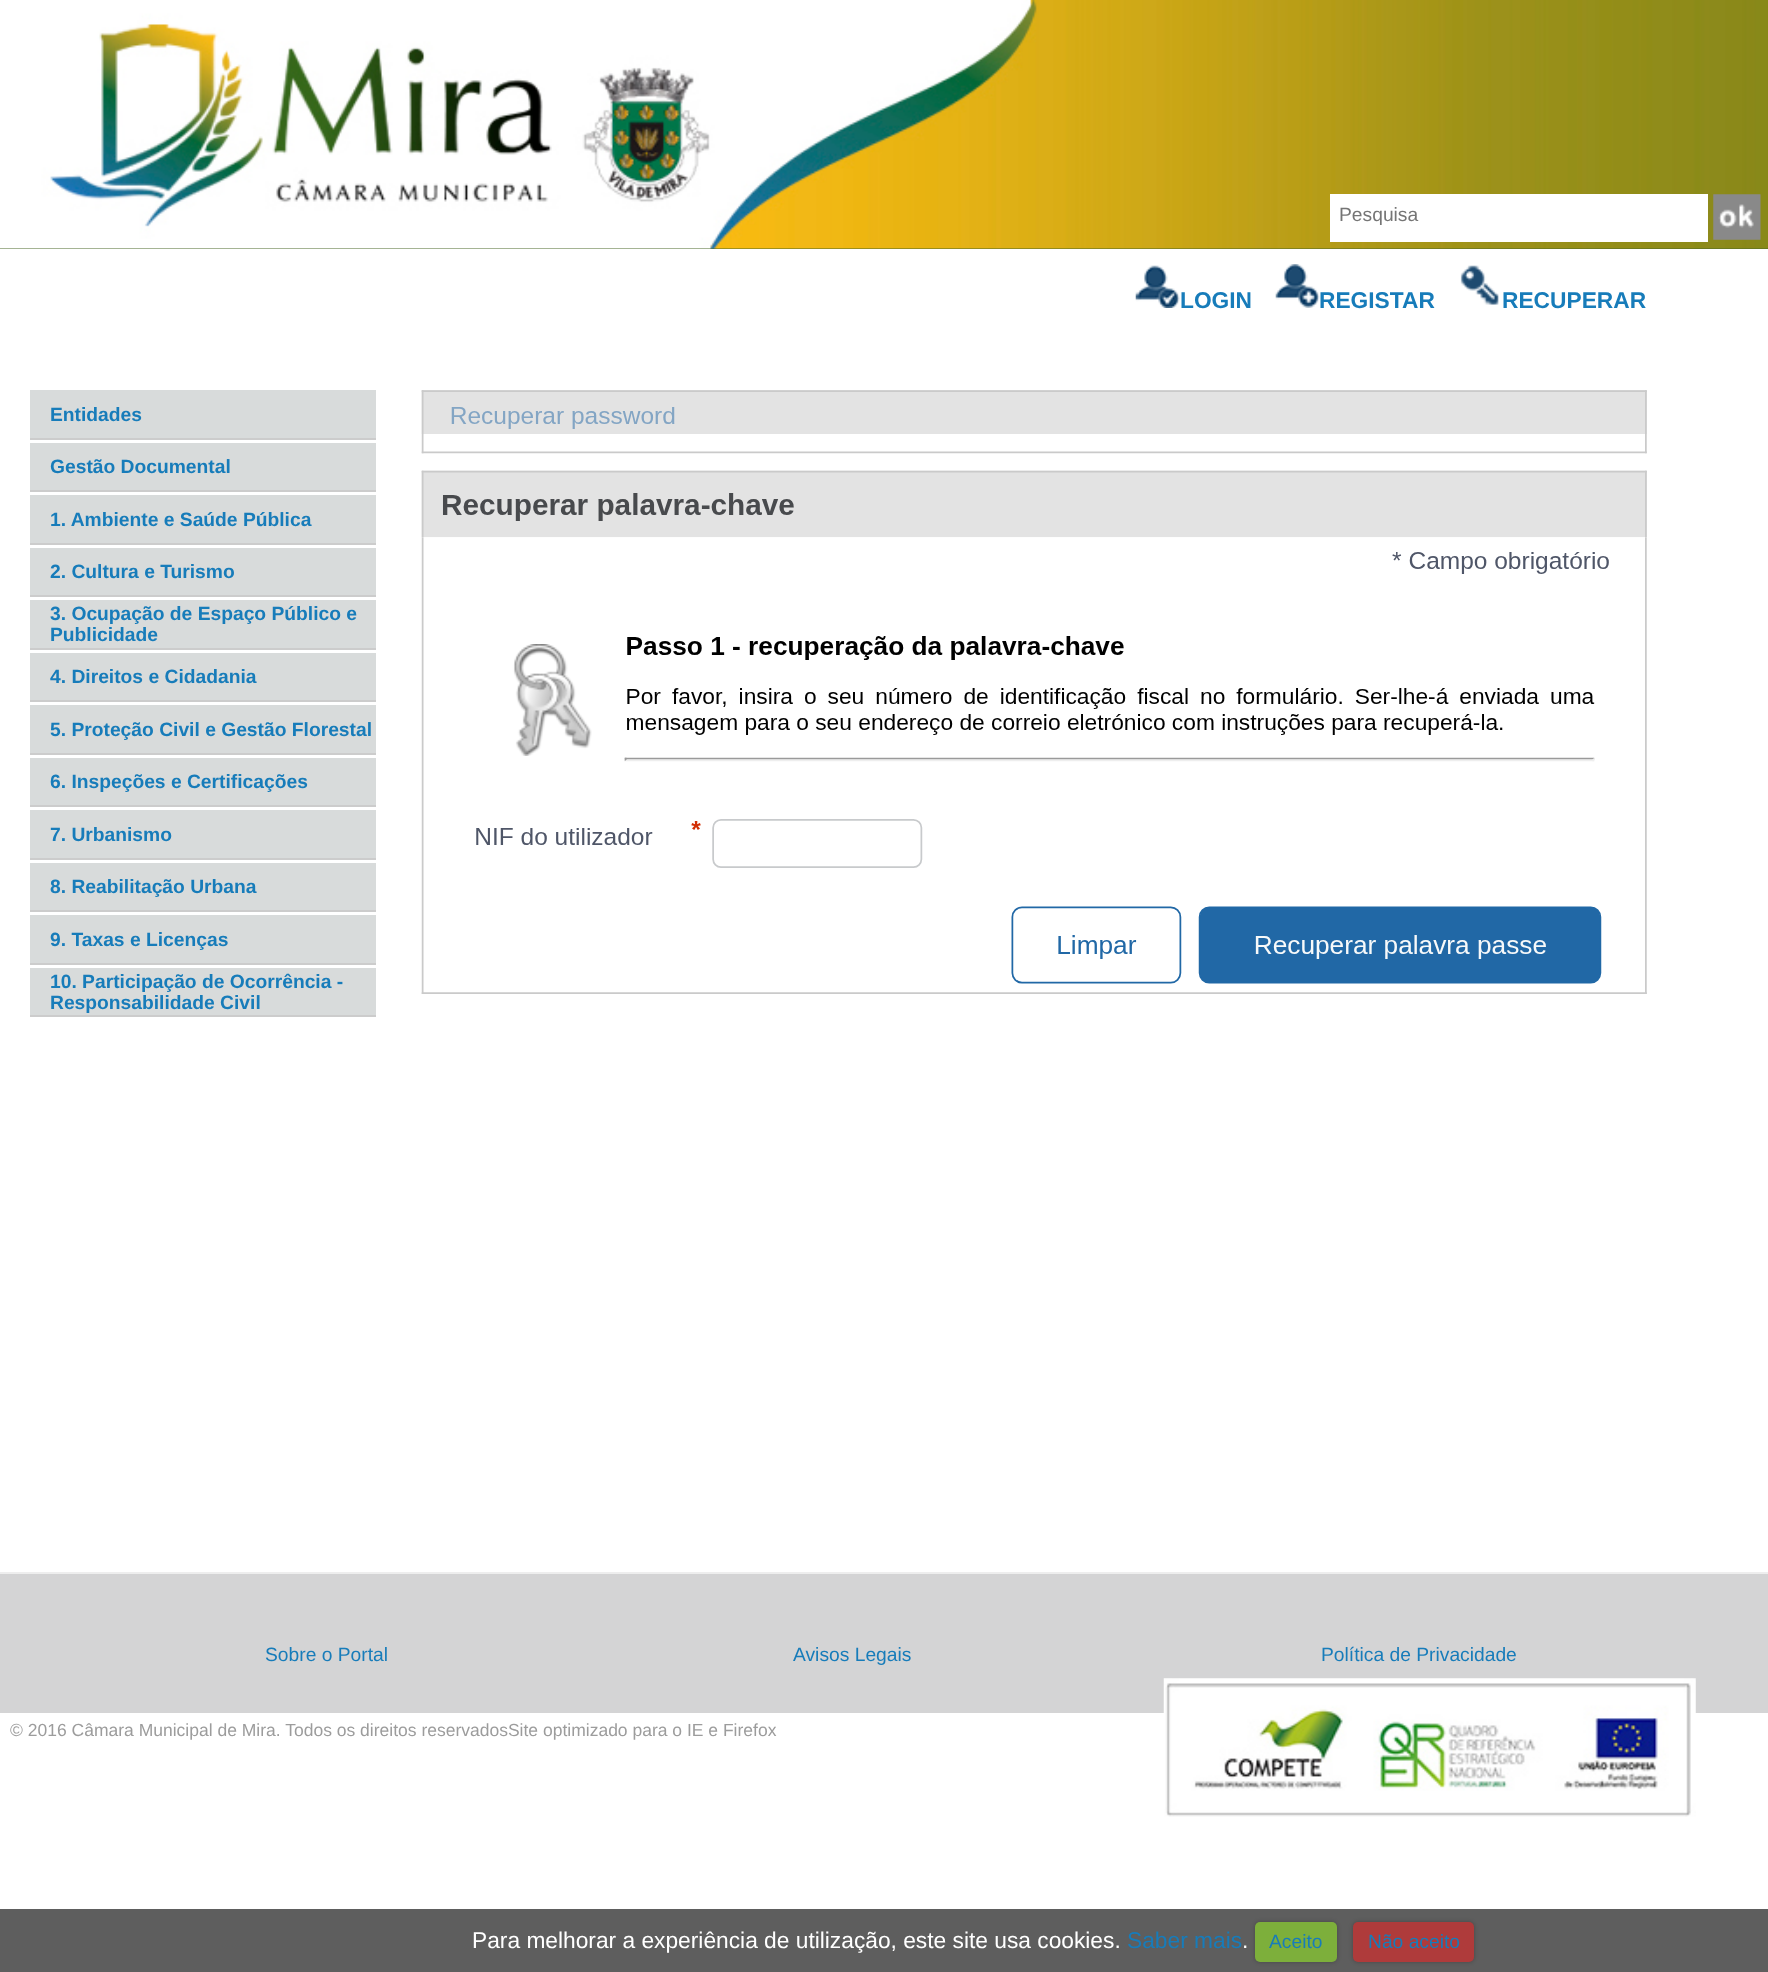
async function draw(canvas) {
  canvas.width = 1768
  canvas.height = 1972
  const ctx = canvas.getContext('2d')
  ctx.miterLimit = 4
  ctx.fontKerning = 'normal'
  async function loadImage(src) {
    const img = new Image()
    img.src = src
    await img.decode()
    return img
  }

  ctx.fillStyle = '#fff'
  ctx.fillRect(0, 0, 1768, 1972)
  ctx.fillStyle = '#4a6828'
  ctx.fillRect(0, 248, 1768, 1)
  ctx.drawImage(await loadImage('image0.png'), 0, 0, 1768, 249)
  ctx.fillStyle = '#fff'
  ctx.fillRect(1330, 194, 378, 48)
  ctx.font = '19.25px Liberation Sans'
  ctx.fillStyle = '#757575'
  ctx.fillText('Pesquisa', 1339, 221)
  ctx.drawImage(await loadImage('image1.png'), 1713, 194, 48, 46)
  ctx.drawImage(await loadImage('image2.png'), 1135, 265, 45, 43)
  ctx.font = 'bold 22.75px Liberation Sans'
  ctx.fillStyle = '#177cba'
  ctx.fillText('LOGIN', 1180, 308)
  ctx.drawImage(await loadImage('image3.png'), 1275, 264, 45, 44)
  ctx.fillText('REGISTAR', 1319, 308)
  ctx.drawImage(await loadImage('image4.png'), 1460, 265, 39, 40)
  ctx.fillText('RECUPERAR', 1502, 308)
  ctx.fillStyle = '#d8dbdb'
  ctx.fillRect(30, 390, 346, 48)
  ctx.fillStyle = '#ccc'
  ctx.fillRect(30, 438, 346, 2)
  ctx.font = 'bold 19.25px Liberation Sans'
  ctx.fillStyle = '#177cba'
  ctx.fillText('Entidades', 50, 421)
  ctx.fillStyle = '#d8dbdb'
  ctx.fillRect(30, 443, 346, 47)
  ctx.fillStyle = '#ccc'
  ctx.fillRect(30, 490, 346, 2)
  ctx.fillStyle = '#177cba'
  ctx.fillText('Gestão Documental', 50, 473)
  ctx.fillStyle = '#d8dbdb'
  ctx.fillRect(30, 495, 346, 48)
  ctx.fillStyle = '#ccc'
  ctx.fillRect(30, 543, 346, 2)
  ctx.fillStyle = '#177cba'
  ctx.fillText('1. Ambiente e Saúde Pública', 50, 526)
  ctx.fillStyle = '#d8dbdb'
  ctx.fillRect(30, 548, 346, 47)
  ctx.fillStyle = '#ccc'
  ctx.fillRect(30, 595, 346, 2)
  ctx.fillStyle = '#177cba'
  ctx.fillText('2. Cultura e Turismo', 50, 578)
  ctx.fillStyle = '#d8dbdb'
  ctx.fillRect(30, 600, 346, 48)
  ctx.fillStyle = '#ccc'
  ctx.fillRect(30, 648, 346, 2)
  ctx.fillStyle = '#177cba'
  ctx.fillText('3. Ocupação de Espaço Público e', 50, 620)
  ctx.fillText('Publicidade', 50, 641)
  ctx.fillStyle = '#d8dbdb'
  ctx.fillRect(30, 653, 346, 47)
  ctx.fillStyle = '#ccc'
  ctx.fillRect(30, 700, 346, 2)
  ctx.fillStyle = '#177cba'
  ctx.fillText('4. Direitos e Cidadania', 50, 683)
  ctx.fillStyle = '#d8dbdb'
  ctx.fillRect(30, 705, 346, 48)
  ctx.fillStyle = '#ccc'
  ctx.fillRect(30, 753, 346, 2)
  ctx.fillStyle = '#177cba'
  ctx.fillText('5. Proteção Civil e Gestão Florestal', 50, 736)
  ctx.fillStyle = '#d8dbdb'
  ctx.fillRect(30, 758, 346, 47)
  ctx.fillStyle = '#ccc'
  ctx.fillRect(30, 805, 346, 2)
  ctx.fillStyle = '#177cba'
  ctx.fillText('6. Inspeções e Certificações', 50, 788)
  ctx.fillStyle = '#d8dbdb'
  ctx.fillRect(30, 810, 346, 48)
  ctx.fillStyle = '#ccc'
  ctx.fillRect(30, 858, 346, 2)
  ctx.fillStyle = '#177cba'
  ctx.fillText('7. Urbanismo', 50, 841)
  ctx.fillStyle = '#d8dbdb'
  ctx.fillRect(30, 863, 346, 47)
  ctx.fillStyle = '#ccc'
  ctx.fillRect(30, 910, 346, 2)
  ctx.fillStyle = '#177cba'
  ctx.fillText('8. Reabilitação Urbana', 50, 893)
  ctx.fillStyle = '#d8dbdb'
  ctx.fillRect(30, 915, 346, 48)
  ctx.fillStyle = '#ccc'
  ctx.fillRect(30, 963, 346, 2)
  ctx.fillStyle = '#177cba'
  ctx.fillText('9. Taxas e Licenças', 50, 946)
  ctx.fillStyle = '#d8dbdb'
  ctx.fillRect(30, 968, 346, 47)
  ctx.fillStyle = '#ccc'
  ctx.fillRect(30, 1015, 346, 2)
  ctx.fillStyle = '#177cba'
  ctx.fillText('10. Participação de Ocorrência -', 50, 988)
  ctx.fillText('Responsabilidade Civil', 50, 1009)
  ctx.drawImage(await loadImage('image5.png'), 421, 390, 1226, 604)
  ctx.fillStyle = '#d4d4d5'
  ctx.fillRect(0, 1574, 1768, 139)
  ctx.fillStyle = '#eee'
  ctx.fillRect(0, 1572, 1768, 2)
  ctx.font = '19.25px Liberation Sans'
  ctx.fillStyle = '#177cba'
  ctx.fillText('Sobre o Portal', 265, 1661)
  ctx.fillText('Avisos Legais', 793, 1661)
  ctx.fillText('Política de Privacidade', 1321, 1661)
  ctx.font = '17.5px Liberation Sans'
  ctx.fillStyle = '#9c9c9c'
  ctx.fillText('© 2016 Câmara Municipal de Mira. Todos os direitos reservadosSite optimizado para o IE e Firefox', 10, 1736)
  ctx.drawImage(await loadImage('image6.png'), 1163, 1678, 533, 139)
  ctx.fillStyle = '#5e5e5e'
  ctx.fillRect(0, 1909, 1768, 63)
  ctx.font = '22.75px Liberation Sans'
  ctx.fillStyle = '#fff'
  ctx.fillText('Para melhorar a experiência de utilização, este site usa cookies.', 472, 1948)
  ctx.fillStyle = '#177cba'
  ctx.fillText('Saber mais', 1127, 1948)
  ctx.fillStyle = '#fff'
  ctx.fillText('.', 1242, 1948)
  ctx.fillStyle = '#00000040'
  ctx.filter = 'blur(2px)'
  ctx.beginPath()
  ctx.roundRect(1255, 1922, 82, 40, 5)
  ctx.fill()
  ctx.filter = 'none'
  ctx.fillStyle = '#7daf3b'
  ctx.beginPath()
  ctx.roundRect(1255, 1922, 82, 40, 5)
  ctx.fill()
  ctx.font = '19.25px Liberation Sans'
  ctx.fillStyle = '#177cba'
  ctx.fillText('Aceito', 1269, 1948)
  ctx.fillStyle = '#00000040'
  ctx.filter = 'blur(2px)'
  ctx.beginPath()
  ctx.roundRect(1353, 1922, 121, 40, 5)
  ctx.fill()
  ctx.filter = 'none'
  ctx.fillStyle = '#af3b3b'
  ctx.beginPath()
  ctx.roundRect(1353, 1922, 121, 40, 5)
  ctx.fill()
  ctx.fillStyle = '#177cba'
  ctx.fillText('Não aceito', 1368, 1948)
}

draw(document.querySelector('canvas'))
